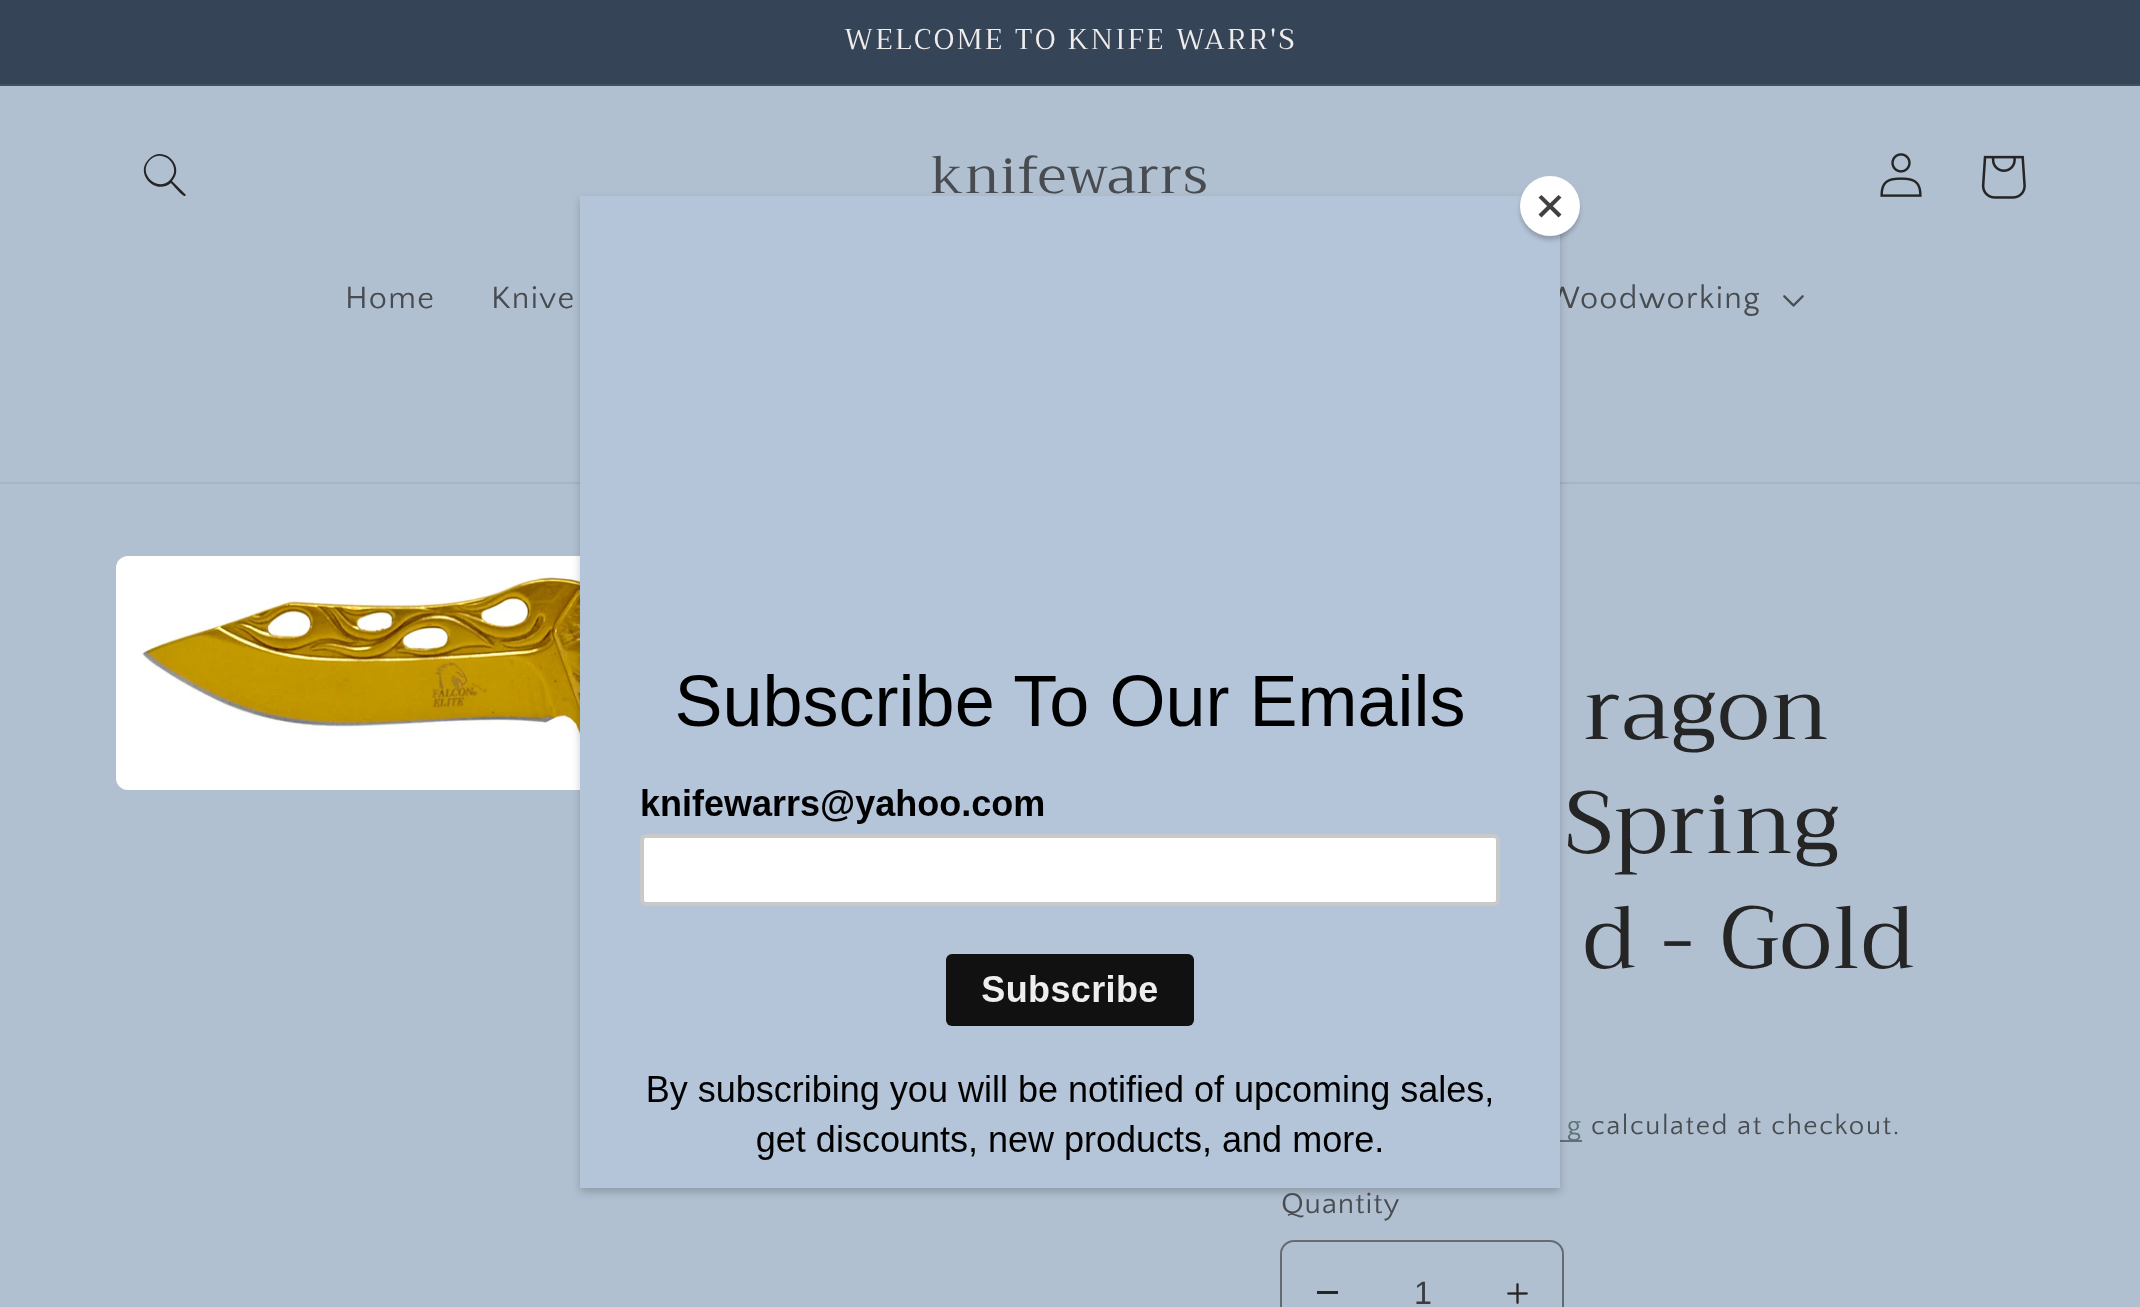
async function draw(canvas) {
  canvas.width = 2140
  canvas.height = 1307
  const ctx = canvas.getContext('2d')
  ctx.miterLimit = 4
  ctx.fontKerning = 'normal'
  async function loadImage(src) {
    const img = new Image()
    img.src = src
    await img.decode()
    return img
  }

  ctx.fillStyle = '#b1c0d1'
  ctx.fillRect(0, 0, 2140, 1307)
  ctx.fillStyle = '#354456'
  ctx.fillRect(0, 0, 2140, 84)
  ctx.fillStyle = '#445162'
  ctx.fillRect(0, 84, 2140, 2)
  ctx.letterSpacing = '2.3px'
  ctx.font = '28.6px Trirong'
  ctx.fillStyle = '#efecec'
  ctx.fillText('WELCOME TO KNIFE WARR\'S', 844, 49)
  ctx.fillStyle = '#a6b4c3'
  ctx.fillRect(0, 482, 2140, 2)
  ctx.fillStyle = '#252525'
  ctx.beginPath()
  ctx.moveTo(170, 180)
  ctx.bezierCurveTo(157, 193, 137, 173, 150, 160)
  ctx.bezierCurveTo(163, 147, 183, 167, 170, 180)
  ctx.closePath()
  ctx.moveTo(171, 183)
  ctx.bezierCurveTo(155, 196, 134, 173, 149, 159)
  ctx.bezierCurveTo(163, 144, 186, 166, 172, 181)
  ctx.lineTo(186, 195)
  ctx.lineTo(185, 196)
  ctx.bezierCurveTo(183, 197, 173, 185, 171, 183)
  ctx.closePath()
  ctx.fill('evenodd')
  ctx.letterSpacing = '1.25px'
  ctx.font = '52.75px Trirong'
  ctx.fillStyle = '#484c50'
  ctx.fillText('knifewarrs', 930, 193)
  ctx.drawImage(await loadImage('image0.png'), 1880, 153, 42, 44)
  ctx.drawImage(await loadImage('image1.png'), 1981, 155, 45, 44)
  ctx.letterSpacing = '1.4px'
  ctx.font = '32.25px Quattrocento Sans'
  ctx.fillText('Home', 345, 308)
  ctx.fillText('Knive', 491, 308)
  ctx.fillText('Woodworking', 1545, 308)
  ctx.drawImage(await loadImage('image2.png'), 1783, 295, 21, 12)
  ctx.drawImage(await loadImage('image4.png'), 116, 556, 464, 234)
  ctx.fillStyle = '#5d7473'
  ctx.fillRect(1560, 1140, 22, 2)
  ctx.fillStyle = '#00000033'
  ctx.filter = 'blur(4px)'
  ctx.beginPath()
  ctx.rect(580, 200, 980, 992)
  ctx.fill()
  ctx.filter = 'none'
  ctx.drawImage(await loadImage('image3.png'), 580, 196, 980, 992)
  ctx.filter = 'blur(2px)'
  ctx.beginPath()
  ctx.roundRect(1520, 180, 60, 60, 30)
  ctx.fill()
  ctx.filter = 'none'
  ctx.fillStyle = '#fff'
  ctx.beginPath()
  ctx.arc(1550, 206, 30, 0, 2 * Math.PI)
  ctx.fill()
  ctx.fillStyle = '#414141'
  ctx.beginPath()
  ctx.moveTo(1558.5, 195)
  ctx.lineTo(1561.5, 197.5)
  ctx.lineTo(1541.5, 217.5)
  ctx.lineTo(1538.5, 214.5)
  ctx.closePath()
  ctx.fill()
  ctx.beginPath()
  ctx.moveTo(1538.5, 197.5)
  ctx.lineTo(1541.5, 195)
  ctx.lineTo(1561.5, 214.5)
  ctx.lineTo(1558.5, 217.5)
  ctx.closePath()
  ctx.fill()
  ctx.letterSpacing = '1.25px'
  ctx.font = '88px Trirong'
  ctx.fillStyle = '#252525'
  ctx.fillText('ragon', 1584, 739)
  ctx.fillText('Spring', 1565, 853)
  ctx.fillText('d - Gold', 1583, 968)
  ctx.letterSpacing = '1.6px'
  ctx.font = '27.6px Quattrocento Sans'
  ctx.fillStyle = '#5d7372'
  ctx.fillText('g', 1567, 1134)
  ctx.fillStyle = '#484c50'
  ctx.fillText('calculated at checkout.', 1591, 1134)
  ctx.letterSpacing = '1px'
  ctx.font = '30px Quattrocento Sans'
  ctx.fillText('Quantity', 1281, 1213)
  ctx.fillStyle = '#252525'
  ctx.fillRect(1317, 1291, 21, 3)
  ctx.drawImage(await loadImage('image5.png'), 1507, 1283, 21, 21)
  ctx.beginPath()
  ctx.roundRect(1281, 1241, 282, 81, 13)
  ctx.strokeStyle = '#646b72'
  ctx.lineWidth = 2
  ctx.stroke()
  ctx.letterSpacing = '0px'
  ctx.font = '32.25px Liberation Sans'
  ctx.fillStyle = '#3a3c3f'
  ctx.fillText('1', 1414, 1304)
}

draw(document.querySelector('canvas'))
